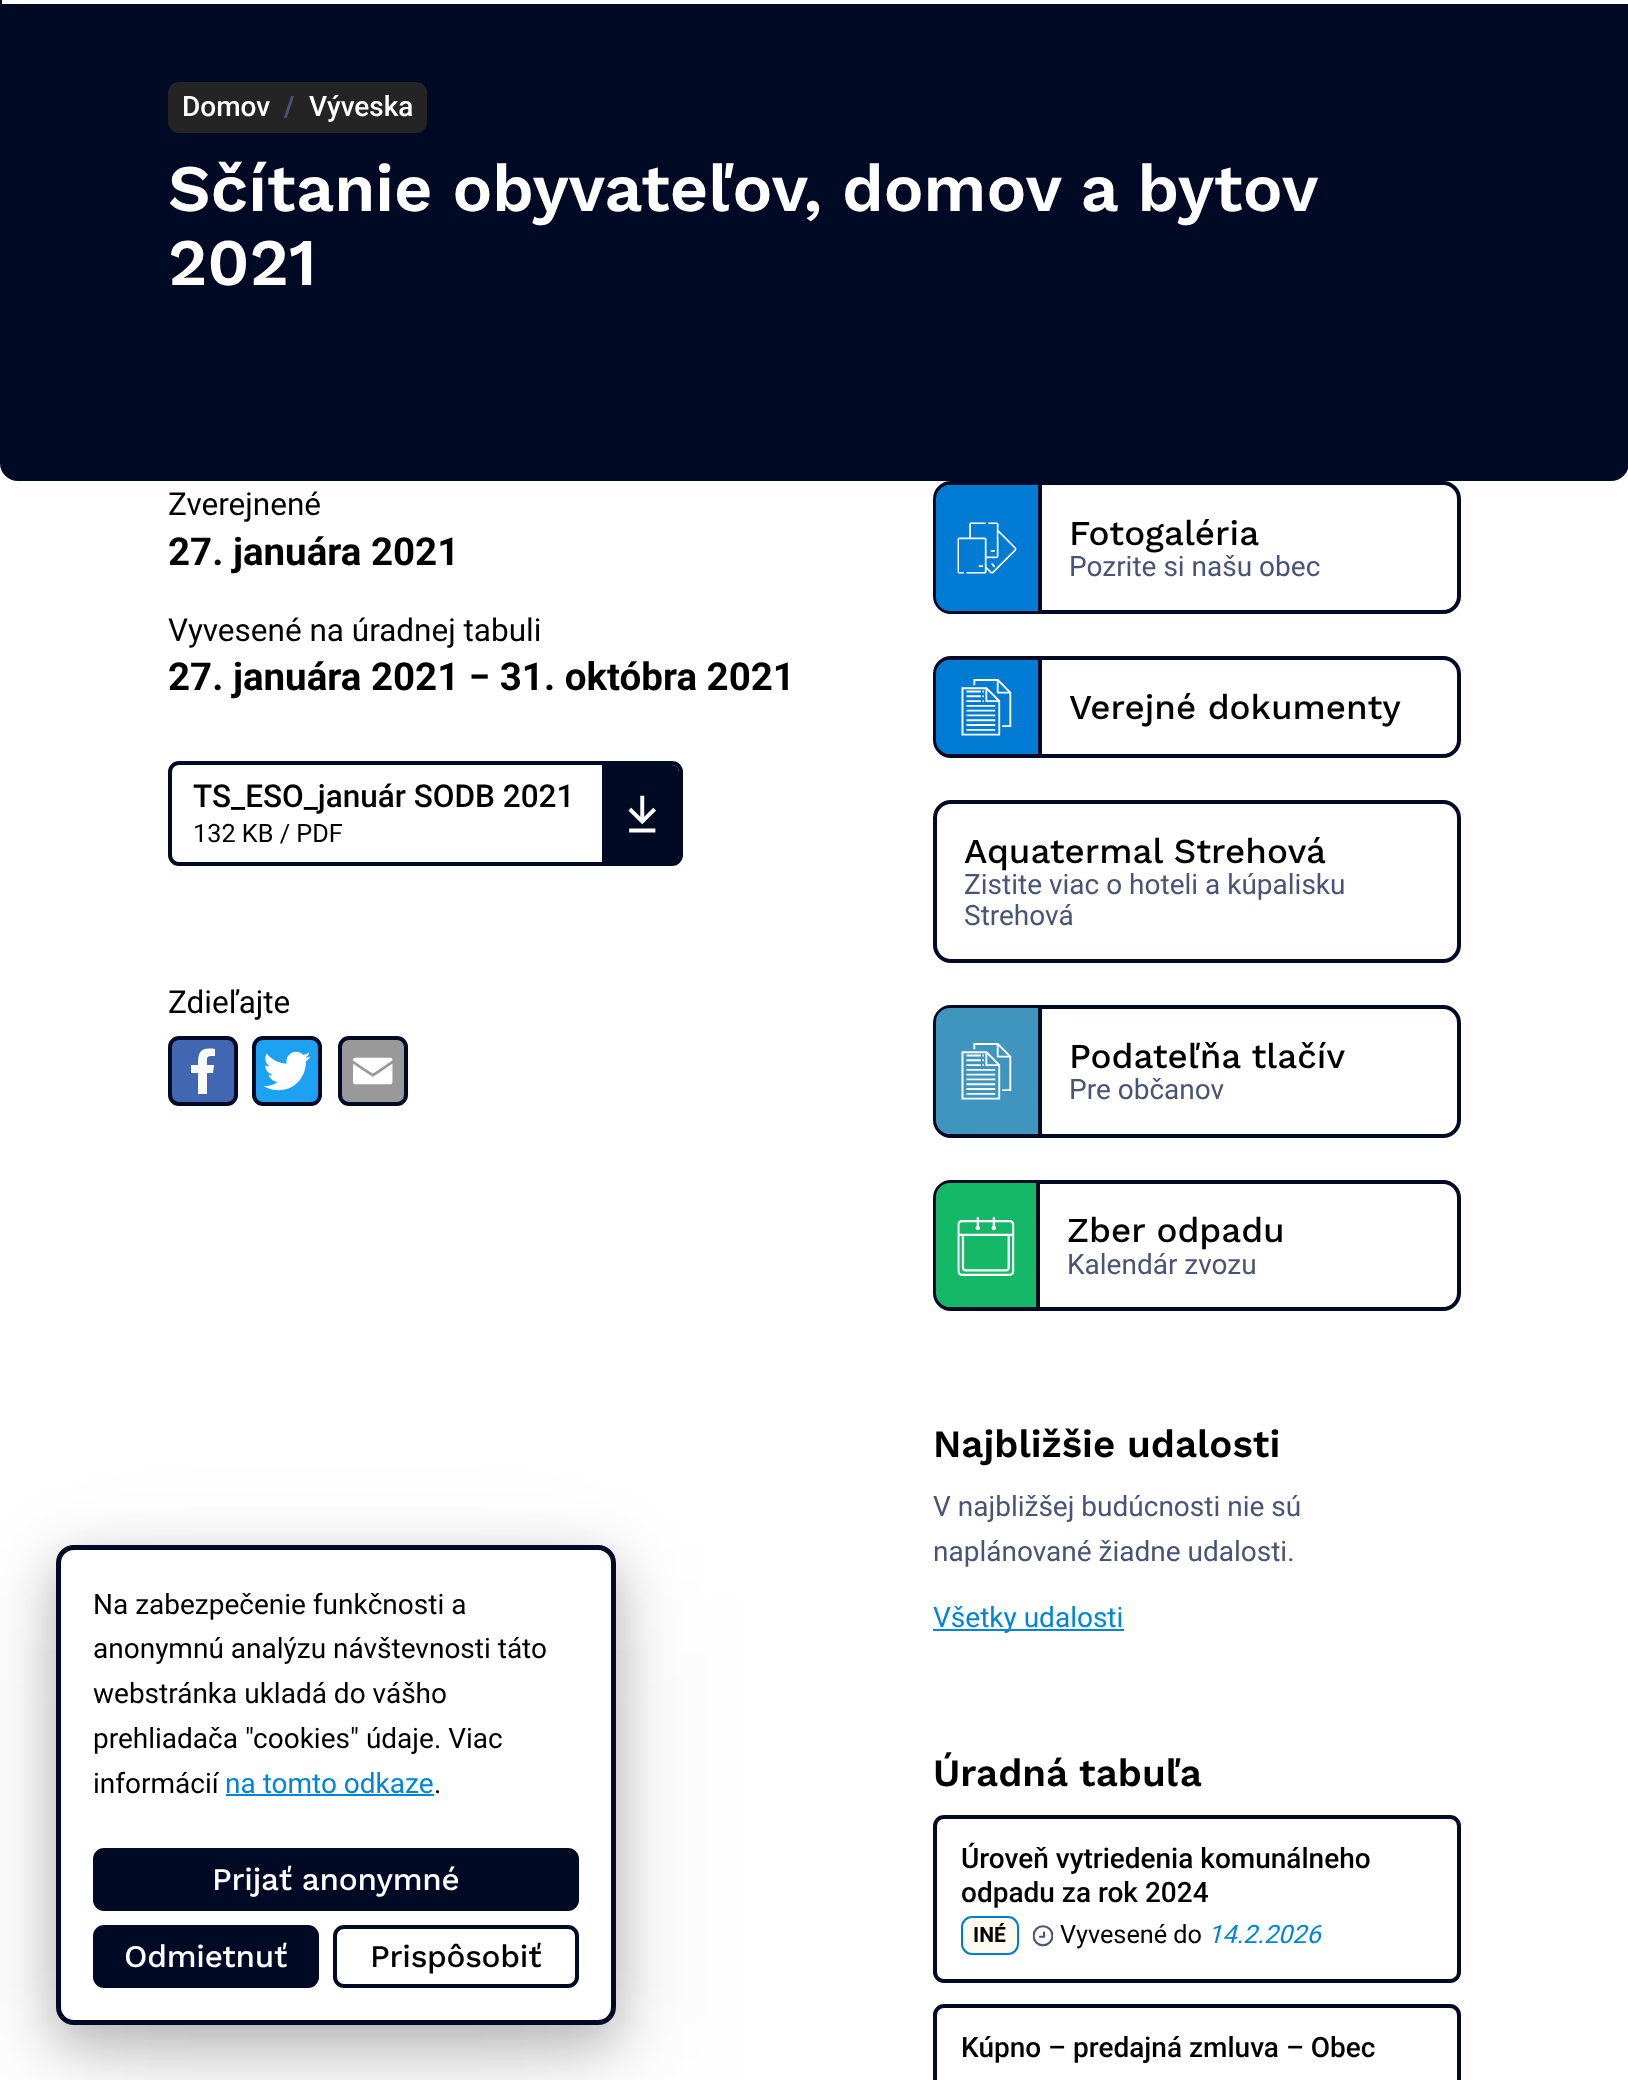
async function draw(canvas) {
  canvas.width = 1628
  canvas.height = 2080
  const ctx = canvas.getContext('2d')
  ctx.miterLimit = 4
  ctx.fontKerning = 'normal'
  async function loadImage(src) {
    const img = new Image()
    img.src = src
    await img.decode()
    return img
  }

  ctx.fillStyle = '#fff'
  ctx.fillRect(0, 0, 1628, 2080)
  ctx.fillStyle = '#000a25'
  ctx.beginPath()
  ctx.roundRect(0, -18, 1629, 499, 18)
  ctx.fill()
  ctx.fillStyle = '#fff'
  ctx.fillRect(2, 0, 1626, 4)
  ctx.fillStyle = '#242424'
  ctx.beginPath()
  ctx.roundRect(168, 82, 259, 51, 11)
  ctx.fill()
  ctx.font = '500 28px Roboto'
  ctx.fillStyle = '#fff'
  ctx.fillText('Domov', 182, 116)
  ctx.font = 'bold 28px Roboto'
  ctx.fillStyle = '#495375'
  ctx.fillText('/', 284, 116)
  ctx.font = '500 28px Roboto'
  ctx.fillStyle = '#fff'
  ctx.fillText('Výveska', 309, 116)
  ctx.wordSpacing = '-0.5px'
  ctx.font = '600 66.5px Work Sans'
  ctx.fillText('Sčítanie obyvateľov, domov a bytov', 168, 211)
  ctx.wordSpacing = '0px'
  ctx.fillText('2021', 168, 285)
  ctx.font = '31.5px Roboto'
  ctx.fillStyle = '#000'
  ctx.fillText('Zverejnené', 168, 515)
  ctx.font = 'bold 38.5px Roboto'
  ctx.fillText('27. januára 2021', 168, 565)
  ctx.font = '31.5px Roboto'
  ctx.fillText('Vyvesené na úradnej tabuli', 168, 641)
  ctx.font = 'bold 38.5px Roboto'
  ctx.fillText('27. januára 2021 − 31. októbra 2021', 168, 690)
  ctx.beginPath()
  ctx.roundRect(170, 763, 511, 101, 9)
  ctx.strokeStyle = '#000a25'
  ctx.lineWidth = 4
  ctx.stroke()
  ctx.font = '500 31.5px Roboto'
  ctx.fillText('TS_ESO_január SODB 2021', 193, 807)
  ctx.font = '25.25px Roboto'
  ctx.fillText('132 KB / PDF', 193, 842)
  ctx.fillStyle = '#000a25'
  ctx.beginPath()
  ctx.roundRect(602, 765, 77, 98, [0, 7, 7, 0])
  ctx.fill()
  ctx.drawImage(await loadImage('image0.png'), 628, 795, 28, 38)
  ctx.font = '31.5px Roboto'
  ctx.fillStyle = '#000'
  ctx.fillText('Zdieľajte', 168, 1013)
  ctx.fillStyle = '#4267b2'
  ctx.beginPath()
  ctx.roundRect(170, 1038, 66, 66, 9)
  ctx.fill()
  ctx.stroke()
  ctx.fillStyle = '#fff'
  ctx.beginPath()
  ctx.moveTo(207, 1094)
  ctx.lineTo(207, 1073)
  ctx.lineTo(213, 1073)
  ctx.lineTo(214, 1065)
  ctx.lineTo(207, 1065)
  ctx.bezierCurveTo(207, 1056, 206, 1056, 215, 1056)
  ctx.lineTo(215, 1049)
  ctx.bezierCurveTo(200, 1047, 198, 1052, 198, 1065)
  ctx.lineTo(191, 1065)
  ctx.lineTo(191, 1073)
  ctx.lineTo(198, 1073)
  ctx.lineTo(198, 1094)
  ctx.lineTo(206, 1094)
  ctx.closePath()
  ctx.fill()
  ctx.fillStyle = '#1da1f2'
  ctx.beginPath()
  ctx.roundRect(254, 1038, 66, 66, 9)
  ctx.fill()
  ctx.stroke()
  ctx.drawImage(await loadImage('image1.png'), 263, 1051, 48, 40)
  ctx.fillStyle = '#999'
  ctx.beginPath()
  ctx.roundRect(340, 1038, 66, 66, 9)
  ctx.fill()
  ctx.stroke()
  ctx.drawImage(await loadImage('image2.png'), 353, 1057, 40, 28)
  ctx.beginPath()
  ctx.roundRect(935, 483, 524, 129, 16)
  ctx.stroke()
  ctx.fillStyle = '#007bd4'
  ctx.beginPath()
  ctx.roundRect(936, 485, 105, 126, [14, 0, 0, 14])
  ctx.fill()
  ctx.fillStyle = '#000a25'
  ctx.fillRect(1038, 485, 4, 126)
  ctx.drawImage(await loadImage('image3.png'), 957, 522, 60, 52)
  ctx.font = '500 35px Work Sans'
  ctx.fillStyle = '#000'
  ctx.fillText('Fotogaléria', 1069, 545)
  ctx.font = '28px Roboto'
  ctx.fillStyle = '#495375'
  ctx.fillText('Pozrite si našu obec', 1069, 576)
  ctx.beginPath()
  ctx.roundRect(935, 658, 524, 98, 16)
  ctx.stroke()
  ctx.fillStyle = '#007bd4'
  ctx.beginPath()
  ctx.roundRect(936, 660, 105, 94, [14, 0, 0, 14])
  ctx.fill()
  ctx.fillStyle = '#000a25'
  ctx.fillRect(1038, 660, 4, 94)
  ctx.drawImage(await loadImage('image4.png'), 961, 679, 51, 57)
  ctx.font = '500 35px Work Sans'
  ctx.fillStyle = '#000'
  ctx.fillText('Verejné dokumenty', 1069, 719)
  ctx.beginPath()
  ctx.roundRect(935, 802, 524, 159, 16)
  ctx.stroke()
  ctx.fillText('Aquatermal Strehová', 964, 863)
  ctx.font = '28px Roboto'
  ctx.fillStyle = '#495375'
  ctx.fillText('Zistite viac o hoteli a kúpalisku', 964, 894)
  ctx.fillText('Strehová', 964, 925)
  ctx.beginPath()
  ctx.roundRect(935, 1007, 524, 129, 16)
  ctx.stroke()
  ctx.fillStyle = '#4095bf'
  ctx.beginPath()
  ctx.roundRect(936, 1008, 105, 126, [14, 0, 0, 14])
  ctx.fill()
  ctx.fillStyle = '#000a25'
  ctx.fillRect(1038, 1008, 4, 126)
  ctx.drawImage(await loadImage('image5.png'), 961, 1043, 51, 57)
  ctx.font = '500 35px Work Sans'
  ctx.fillStyle = '#000'
  ctx.fillText('Podateľňa tlačív', 1069, 1068)
  ctx.font = '28px Roboto'
  ctx.fillStyle = '#495375'
  ctx.fillText('Pre občanov', 1069, 1099)
  ctx.beginPath()
  ctx.roundRect(935, 1182, 524, 127, 16)
  ctx.stroke()
  ctx.fillStyle = '#14b866'
  ctx.beginPath()
  ctx.roundRect(936, 1183, 104, 124, [14, 0, 0, 14])
  ctx.fill()
  ctx.fillStyle = '#000a25'
  ctx.fillRect(1036, 1183, 4, 124)
  ctx.drawImage(await loadImage('image6.png'), 957, 1216, 58, 60)
  ctx.font = '500 35px Work Sans'
  ctx.fillStyle = '#000'
  ctx.fillText('Zber odpadu', 1067, 1242)
  ctx.font = '28px Roboto'
  ctx.fillStyle = '#495375'
  ctx.fillText('Kalendár zvozu', 1067, 1274)
  ctx.font = '600 38.5px Work Sans'
  ctx.fillStyle = '#000'
  ctx.fillText('Najbližšie udalosti', 933, 1457)
  ctx.font = '28px Roboto'
  ctx.fillStyle = '#495375'
  ctx.fillText('V najbližšej budúcnosti nie sú', 933, 1516)
  ctx.fillText('naplánované žiadne udalosti.', 933, 1561)
  ctx.fillStyle = '#0085d6'
  ctx.fillRect(933, 1629, 191, 2)
  ctx.fillText('Všetky udalosti', 933, 1627)
  ctx.font = '600 38.5px Work Sans'
  ctx.fillStyle = '#000'
  ctx.fillText('Úradná tabuľa', 933, 1786)
  ctx.fillStyle = '#fefbf0'
  ctx.beginPath()
  ctx.roundRect(962, 1917, 56, 37, 10)
  ctx.fill()
  ctx.strokeStyle = '#007bd4'
  ctx.lineWidth = 2
  ctx.stroke()
  ctx.drawImage(await loadImage('image7.png'), 1032, 1925, 22, 22)
  ctx.beginPath()
  ctx.roundRect(935, 1817, 524, 164, 9)
  ctx.strokeStyle = '#000a25'
  ctx.lineWidth = 4
  ctx.stroke()
  ctx.font = '500 28px Roboto'
  ctx.fillStyle = '#000'
  ctx.fillText('Úroveň vytriedenia komunálneho', 961, 1868)
  ctx.fillText('odpadu za rok 2024', 961, 1902)
  ctx.font = 'bold 21px Roboto'
  ctx.fillText('INÉ', 973, 1942)
  ctx.font = '25.25px Roboto'
  ctx.fillText('Vyvesené do', 1060, 1943)
  ctx.font = 'italic 25.25px Roboto'
  ctx.fillStyle = '#0085d6'
  ctx.fillText('14.2.2026', 1208, 1943)
  ctx.beginPath()
  ctx.roundRect(935, 2006, 524, 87, 9)
  ctx.stroke()
  ctx.font = '500 28px Roboto'
  ctx.fillStyle = '#000'
  ctx.fillText('Kúpno – predajná zmluva – Obec', 961, 2057)
  ctx.fillStyle = '#0000000d'
  ctx.filter = 'blur(79px)'
  ctx.beginPath()
  ctx.roundRect(56, 1598, 560, 479, 18)
  ctx.fill()
  ctx.filter = 'none'
  ctx.filter = 'blur(52.5px)'
  ctx.beginPath()
  ctx.roundRect(56, 1580, 560, 480, 18)
  ctx.fill()
  ctx.filter = 'none'
  ctx.fillStyle = '#00000040'
  ctx.filter = 'blur(26px)'
  ctx.beginPath()
  ctx.roundRect(56, 1563, 560, 479, 18)
  ctx.fill()
  ctx.filter = 'none'
  ctx.fillStyle = '#fff'
  ctx.beginPath()
  ctx.roundRect(58.5, 1547.5, 555, 475, 15.5)
  ctx.fill()
  ctx.lineWidth = 5
  ctx.stroke()
  ctx.font = '28px Roboto'
  ctx.fillStyle = '#000'
  ctx.fillText('Na zabezpečenie funkčnosti a', 93, 1614)
  ctx.fillText('anonymnú analýzu návštevnosti táto', 93, 1658)
  ctx.fillText('webstránka ukladá do vášho', 93, 1703)
  ctx.fillText('prehliadača "cookies" údaje. Viac', 93, 1748)
  ctx.fillText('informácií', 93, 1793)
  ctx.fillStyle = '#0085d6'
  ctx.fillText('na tomto odkaze', 225, 1793)
  ctx.fillRect(226, 1794, 208, 2)
  ctx.fillStyle = '#000'
  ctx.fillText('.', 434, 1793)
  ctx.fillStyle = '#000a25'
  ctx.beginPath()
  ctx.roundRect(95, 1850, 482, 59, 9)
  ctx.fill()
  ctx.lineWidth = 4
  ctx.stroke()
  ctx.letterSpacing = '-0.25px'
  ctx.font = '500 31.5px Work Sans'
  ctx.fillStyle = '#fff'
  ctx.fillText('Prijať anonymné', 212, 1890)
  ctx.fillStyle = '#000a25'
  ctx.beginPath()
  ctx.roundRect(95, 1927, 222, 59, 9)
  ctx.fill()
  ctx.stroke()
  ctx.fillStyle = '#fff'
  ctx.fillText('Odmietnuť', 124, 1967)
  ctx.beginPath()
  ctx.roundRect(335, 1927, 242, 59, 9)
  ctx.stroke()
  ctx.fillStyle = '#000'
  ctx.fillText('Prispôsobiť', 370, 1967)
}

draw(document.querySelector('canvas'))
